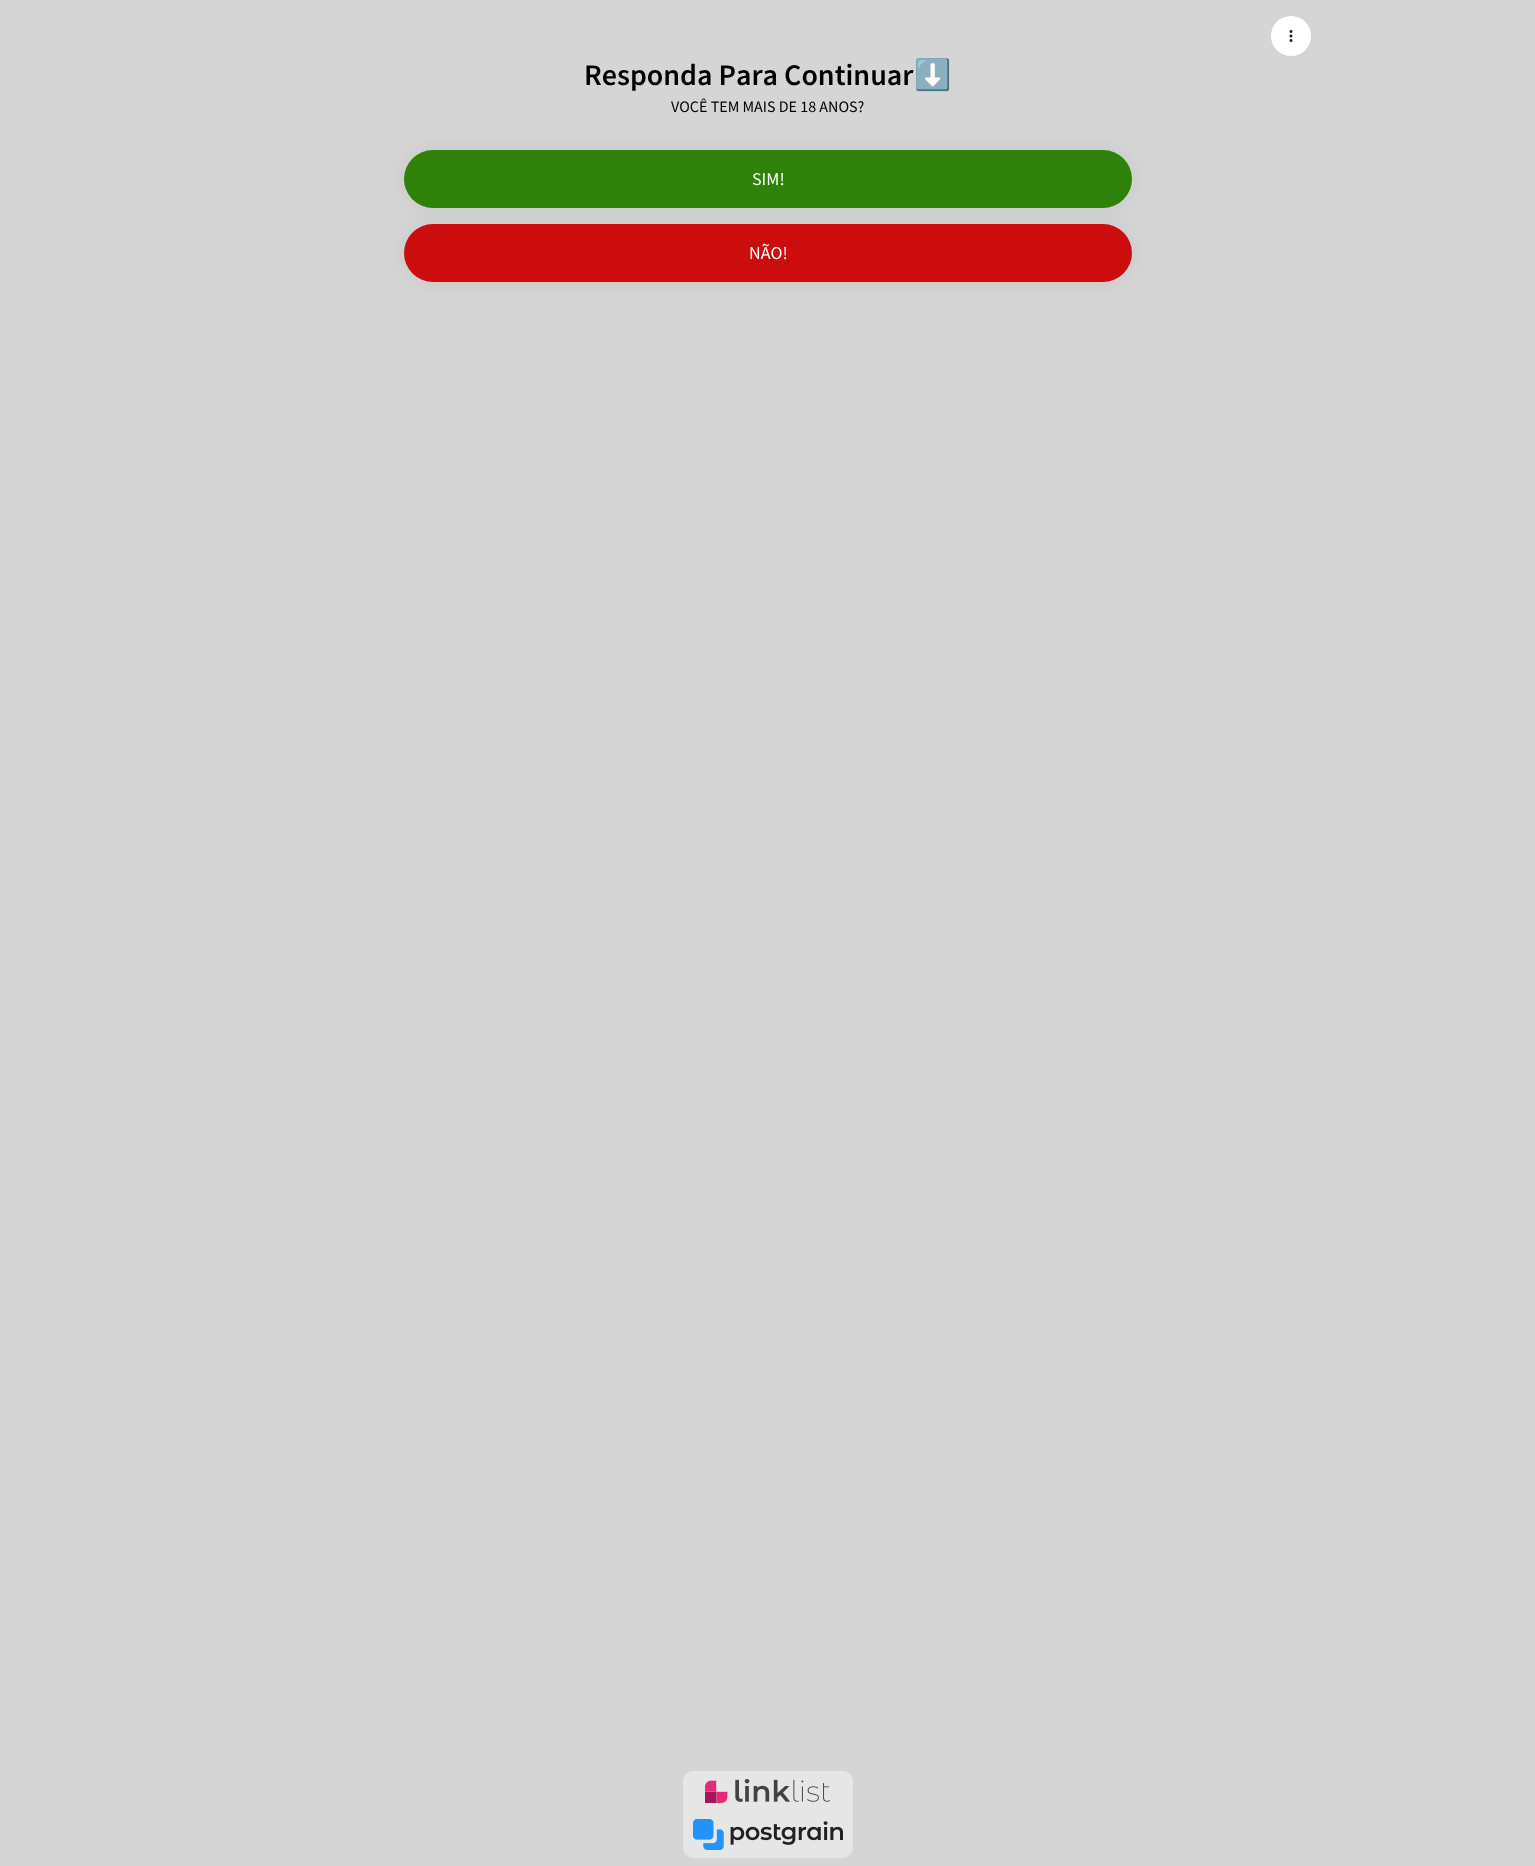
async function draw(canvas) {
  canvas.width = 1535
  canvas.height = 1866
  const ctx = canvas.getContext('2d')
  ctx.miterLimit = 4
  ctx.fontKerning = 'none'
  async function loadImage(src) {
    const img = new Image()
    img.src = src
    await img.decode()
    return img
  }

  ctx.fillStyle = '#d5d5d5'
  ctx.fillRect(0, 0, 1535, 1866)
  ctx.fillStyle = '#fff'
  ctx.beginPath()
  ctx.arc(1291, 36, 20, 0, 2 * Math.PI)
  ctx.fill()
  ctx.drawImage(await loadImage('image0.png'), 1289, 30, 4, 12)
  ctx.font = '600 30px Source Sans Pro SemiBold'
  ctx.fillStyle = '#000'
  ctx.fillText('Responda Para Continuar', 584, 85)
  ctx.font = '30px Noto Color Emoji'
  ctx.fillText('⬇', 914, 85)
  ctx.font = '16px Source Sans Pro'
  ctx.fillText('VOCÊ TEM MAIS DE 18 ANOS?', 671, 112)
  ctx.fillStyle = '#0000000f'
  ctx.filter = 'blur(10px)'
  ctx.beginPath()
  ctx.roundRect(404, 150, 728, 58, 29)
  ctx.fill()
  ctx.filter = 'none'
  ctx.fillStyle = '#2e8109'
  ctx.beginPath()
  ctx.roundRect(404, 150, 728, 58, 29)
  ctx.fill()
  ctx.font = '18px Source Sans Pro'
  ctx.fillStyle = '#fff'
  ctx.fillText('SIM!', 752, 185)
  ctx.fillStyle = '#0000000f'
  ctx.filter = 'blur(10px)'
  ctx.beginPath()
  ctx.roundRect(404, 224, 728, 58, 29)
  ctx.fill()
  ctx.filter = 'none'
  ctx.fillStyle = '#cc0d0d'
  ctx.beginPath()
  ctx.roundRect(404, 224, 728, 58, 29)
  ctx.fill()
  ctx.fillStyle = '#fff'
  ctx.fillText('NÃO!', 749, 259)
  ctx.fillStyle = '#e6e6e6'
  ctx.beginPath()
  ctx.roundRect(683, 1771, 170, 87, 10)
  ctx.fill()
  ctx.drawImage(await loadImage('image1.png'), 705, 1779, 125, 24)
  ctx.drawImage(await loadImage('image2.png'), 693, 1819, 150, 31)
}

draw(document.querySelector('canvas'))
